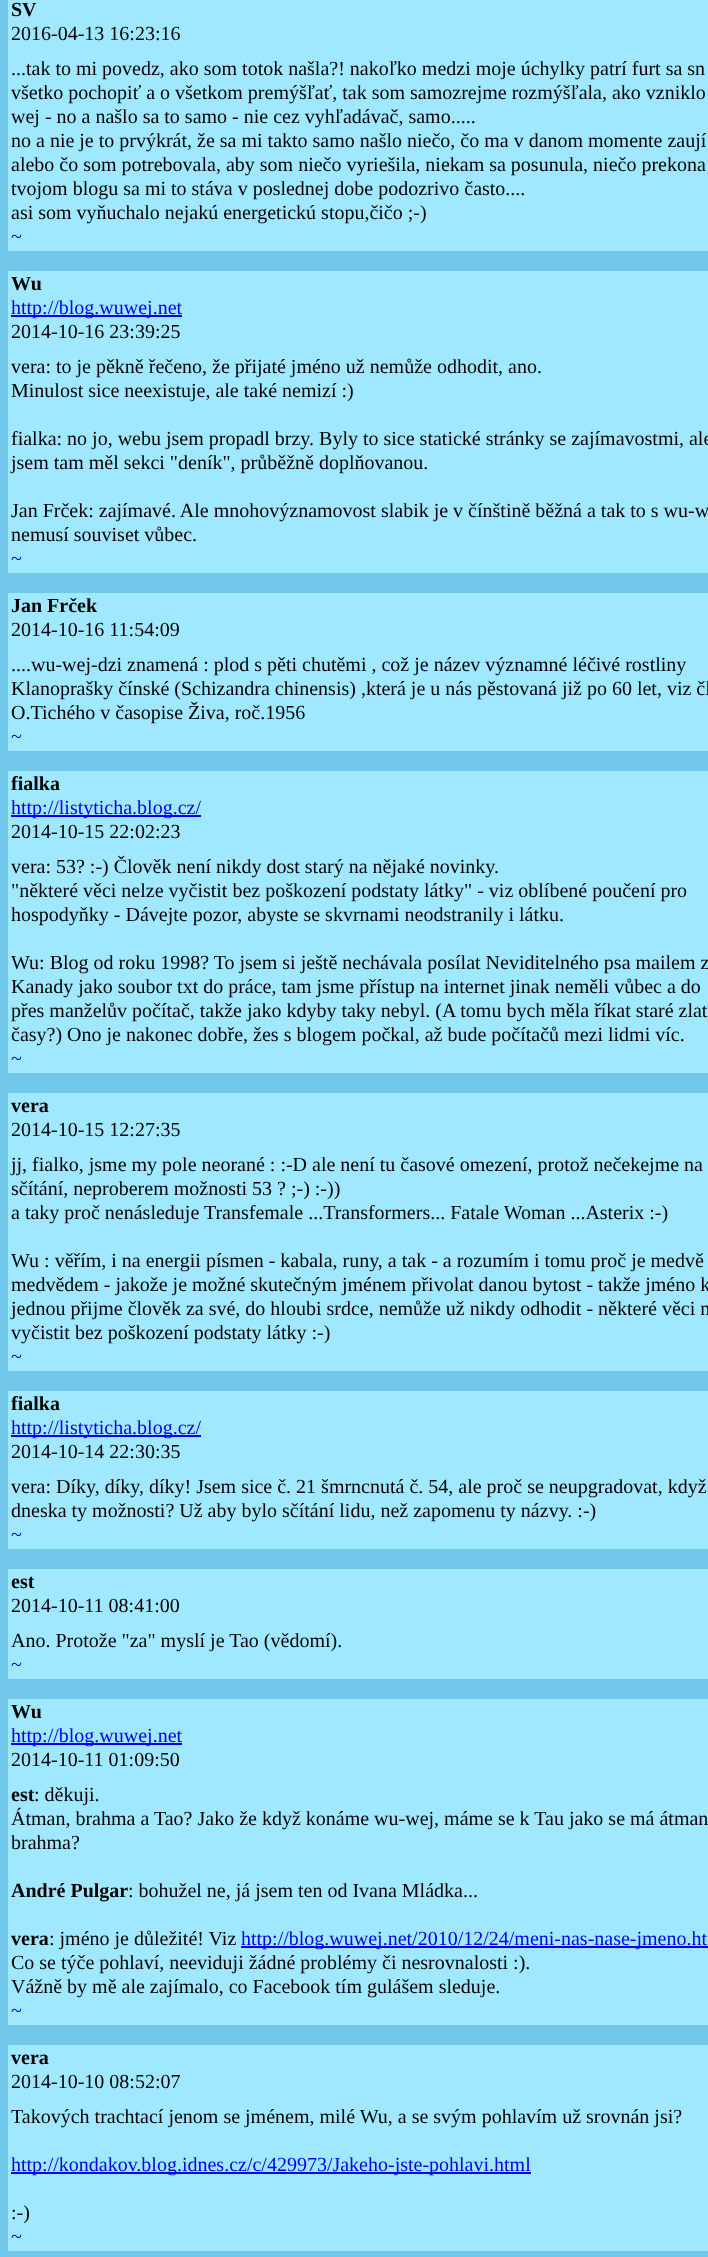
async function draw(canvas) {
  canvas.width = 708
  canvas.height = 2257
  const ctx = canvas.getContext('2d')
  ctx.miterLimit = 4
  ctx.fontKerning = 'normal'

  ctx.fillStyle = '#72c8eb'
  ctx.fillRect(0, 0, 708, 2257)
  ctx.fillStyle = '#a0e8ff'
  ctx.fillRect(8, 0, 700, 251)
  ctx.font = 'bold 20px Tinos'
  ctx.fillStyle = '#000'
  ctx.fillText('SV', 11, 16)
  ctx.font = '20px Tinos'
  ctx.fillText('2016-04-13 16:23:16', 11, 40)
  ctx.fillText('...tak to mi povedz, ako som totok našla?! nakoľko medzi moje úchylky patrí furt sa sn', 11, 75)
  ctx.fillText('všetko pochopiť a o všetkom premýšľať, tak som samozrejme rozmýšľala, ako vzniklo', 11, 99)
  ctx.fillText('wej - no a našlo sa to samo - nie cez vyhľadávač, samo.....', 11, 123)
  ctx.fillText('no a nie je to prvýkrát, že sa mi takto samo našlo niečo, čo ma v danom momente zaují', 11, 147)
  ctx.fillText('alebo čo som potrebovala, aby som niečo vyriešila, niekam sa posunula, niečo prekona', 11, 171)
  ctx.fillText('tvojom blogu sa mi to stáva v poslednej dobe podozrivo často....', 11, 195)
  ctx.fillText('asi som vyňuchalo nejakú energetickú stopu,čičo ;-)', 11, 219)
  ctx.fillStyle = '#00e'
  ctx.fillText('~', 11, 243)
  ctx.fillStyle = '#a0e8ff'
  ctx.fillRect(8, 271, 700, 302)
  ctx.font = 'bold 20px Tinos'
  ctx.fillStyle = '#000'
  ctx.fillText('Wu', 11, 290)
  ctx.fillStyle = '#00e'
  ctx.fillRect(11, 315, 171, 2)
  ctx.font = '20px Tinos'
  ctx.fillText('http://blog.wuwej.net', 11, 314)
  ctx.fillStyle = '#000'
  ctx.fillText('2014-10-16 23:39:25', 11, 338)
  ctx.fillText('vera: to je pěkně řečeno, že přijaté jméno už nemůže odhodit, ano.', 11, 373)
  ctx.fillText('Minulost sice neexistuje, ale také nemizí :)', 11, 397)
  ctx.fillText('fialka: no jo, webu jsem propadl brzy. Byly to sice statické stránky se zajímavostmi, ale', 11, 445)
  ctx.fillText('jsem tam měl sekci "deník", průběžně doplňovanou.', 11, 469)
  ctx.fillText('Jan Frček: zajímavé. Ale mnohovýznamovost slabik je v čínštině běžná a tak to s wu-w', 11, 517)
  ctx.fillText('nemusí souviset vůbec.', 11, 541)
  ctx.fillStyle = '#00e'
  ctx.fillText('~', 11, 565)
  ctx.fillStyle = '#a0e8ff'
  ctx.fillRect(8, 593, 700, 158)
  ctx.font = 'bold 20px Tinos'
  ctx.fillStyle = '#000'
  ctx.fillText('Jan Frček', 11, 612)
  ctx.font = '20px Tinos'
  ctx.fillText('2014-10-16 11:54:09', 11, 636)
  ctx.fillText('....wu-wej-dzi znamená : plod s pěti chutěmi , což je název významné léčivé rostliny', 11, 671)
  ctx.fillText('Klanoprašky čínské (Schizandra chinensis) ,která je u nás pěstovaná již po 60 let, viz čl', 11, 695)
  ctx.fillText('O.Tichého v časopise Živa, roč.1956', 11, 719)
  ctx.fillStyle = '#00e'
  ctx.fillText('~', 11, 743)
  ctx.fillStyle = '#a0e8ff'
  ctx.fillRect(8, 771, 700, 302)
  ctx.font = 'bold 20px Tinos'
  ctx.fillStyle = '#000'
  ctx.fillText('fialka', 11, 790)
  ctx.fillStyle = '#00e'
  ctx.fillRect(11, 815, 190, 2)
  ctx.font = '20px Tinos'
  ctx.fillText('http://listyticha.blog.cz/', 11, 814)
  ctx.fillStyle = '#000'
  ctx.fillText('2014-10-15 22:02:23', 11, 838)
  ctx.fillText('vera: 53? :-) Člověk není nikdy dost starý na nějaké novinky.', 11, 873)
  ctx.fillText('"některé věci nelze vyčistit bez poškození podstaty látky" - viz oblíbené poučení pro', 11, 897)
  ctx.fillText('hospodyňky - Dávejte pozor, abyste se skvrnami neodstranily i látku.', 11, 921)
  ctx.fillText('Wu: Blog od roku 1998? To jsem si ještě nechávala posílat Neviditelného psa mailem z', 11, 969)
  ctx.fillText('Kanady jako soubor txt do práce, tam jsme přístup na internet jinak neměli vůbec a do', 11, 993)
  ctx.fillText('přes manželův počítač, takže jako kdyby taky nebyl. (A tomu bych měla říkat staré zlat', 11, 1017)
  ctx.fillText('časy?) Ono je nakonec dobře, žes s blogem počkal, až bude počítačů mezi lidmi víc.', 11, 1041)
  ctx.fillStyle = '#00e'
  ctx.fillText('~', 11, 1065)
  ctx.fillStyle = '#a0e8ff'
  ctx.fillRect(8, 1093, 700, 278)
  ctx.font = 'bold 20px Tinos'
  ctx.fillStyle = '#000'
  ctx.fillText('vera', 11, 1112)
  ctx.font = '20px Tinos'
  ctx.fillText('2014-10-15 12:27:35', 11, 1136)
  ctx.fillText('jj, fialko, jsme my pole neorané : :-D ale není tu časové omezení, protož nečekejme na', 11, 1171)
  ctx.fillText('sčítání, neproberem možnosti 53 ? ;-) :-))', 11, 1195)
  ctx.fillText('a taky proč nenásleduje Transfemale ...Transformers... Fatale Woman ...Asterix :-)', 11, 1219)
  ctx.fillText('Wu : věřím, i na energii písmen - kabala, runy, a tak - a rozumím i tomu proč je medvě', 11, 1267)
  ctx.fillText('medvědem - jakože je možné skutečným jménem přivolat danou bytost - takže jméno k', 11, 1291)
  ctx.fillText('jednou přijme člověk za své, do hloubi srdce, nemůže už nikdy odhodit - některé věci n', 11, 1315)
  ctx.fillText('vyčistit bez poškození podstaty látky :-)', 11, 1339)
  ctx.fillStyle = '#00e'
  ctx.fillText('~', 11, 1363)
  ctx.fillStyle = '#a0e8ff'
  ctx.fillRect(8, 1391, 700, 158)
  ctx.font = 'bold 20px Tinos'
  ctx.fillStyle = '#000'
  ctx.fillText('fialka', 11, 1410)
  ctx.fillStyle = '#00e'
  ctx.fillRect(11, 1435, 190, 2)
  ctx.font = '20px Tinos'
  ctx.fillText('http://listyticha.blog.cz/', 11, 1434)
  ctx.fillStyle = '#000'
  ctx.fillText('2014-10-14 22:30:35', 11, 1458)
  ctx.fillText('vera: Díky, díky, díky! Jsem sice č. 21 šmrncnutá č. 54, ale proč se neupgradovat, když', 11, 1493)
  ctx.fillText('dneska ty možnosti? Už aby bylo sčítání lidu, než zapomenu ty názvy. :-)', 11, 1517)
  ctx.fillStyle = '#00e'
  ctx.fillText('~', 11, 1541)
  ctx.fillStyle = '#a0e8ff'
  ctx.fillRect(8, 1569, 700, 110)
  ctx.font = 'bold 20px Tinos'
  ctx.fillStyle = '#000'
  ctx.fillText('est', 11, 1588)
  ctx.font = '20px Tinos'
  ctx.fillText('2014-10-11 08:41:00', 11, 1612)
  ctx.fillText('Ano. Protože "za" myslí je Tao (vědomí).', 11, 1647)
  ctx.fillStyle = '#00e'
  ctx.fillText('~', 11, 1671)
  ctx.fillStyle = '#a0e8ff'
  ctx.fillRect(8, 1699, 700, 326)
  ctx.font = 'bold 20px Tinos'
  ctx.fillStyle = '#000'
  ctx.fillText('Wu', 11, 1718)
  ctx.fillStyle = '#00e'
  ctx.fillRect(11, 1743, 171, 2)
  ctx.font = '20px Tinos'
  ctx.fillText('http://blog.wuwej.net', 11, 1742)
  ctx.fillStyle = '#000'
  ctx.fillText('2014-10-11 01:09:50', 11, 1766)
  ctx.font = 'bold 20px Tinos'
  ctx.fillText('est', 11, 1801)
  ctx.font = '20px Tinos'
  ctx.fillText(': děkuji.', 34, 1801)
  ctx.fillText('Átman, brahma a Tao? Jako že když konáme wu-wej, máme se k Tau jako se má átman', 11, 1825)
  ctx.fillText('brahma?', 11, 1849)
  ctx.font = 'bold 20px Tinos'
  ctx.fillText('André Pulgar', 11, 1897)
  ctx.font = '20px Tinos'
  ctx.fillText(': bohužel ne, já jsem ten od Ivana Mládka...', 128, 1897)
  ctx.font = 'bold 20px Tinos'
  ctx.fillText('vera', 11, 1945)
  ctx.font = '20px Tinos'
  ctx.fillText(': jméno je důležité! Viz', 49, 1945)
  ctx.fillStyle = '#00e'
  ctx.fillRect(241, 1946, 467, 2)
  ctx.fillText('http://blog.wuwej.net/2010/12/24/meni-nas-nase-jmeno.ht', 241, 1945)
  ctx.fillStyle = '#000'
  ctx.fillText('Co se týče pohlaví, neeviduji žádné problémy či nesrovnalosti :).', 11, 1969)
  ctx.fillText('Vážně by mě ale zajímalo, co Facebook tím gulášem sleduje.', 11, 1993)
  ctx.fillStyle = '#00e'
  ctx.fillText('~', 11, 2017)
  ctx.fillStyle = '#a0e8ff'
  ctx.fillRect(8, 2045, 700, 206)
  ctx.font = 'bold 20px Tinos'
  ctx.fillStyle = '#000'
  ctx.fillText('vera', 11, 2064)
  ctx.font = '20px Tinos'
  ctx.fillText('2014-10-10 08:52:07', 11, 2088)
  ctx.fillText('Takových trachtací jenom se jménem, milé Wu, a se svým pohlavím už srovnán jsi?', 11, 2123)
  ctx.fillStyle = '#00e'
  ctx.fillRect(11, 2172, 520, 2)
  ctx.fillText('http://kondakov.blog.idnes.cz/c/429973/Jakeho-jste-pohlavi.html', 11, 2171)
  ctx.fillStyle = '#000'
  ctx.fillText(':-)', 11, 2219)
  ctx.fillStyle = '#00e'
  ctx.fillText('~', 11, 2243)
}

draw(document.querySelector('canvas'))
